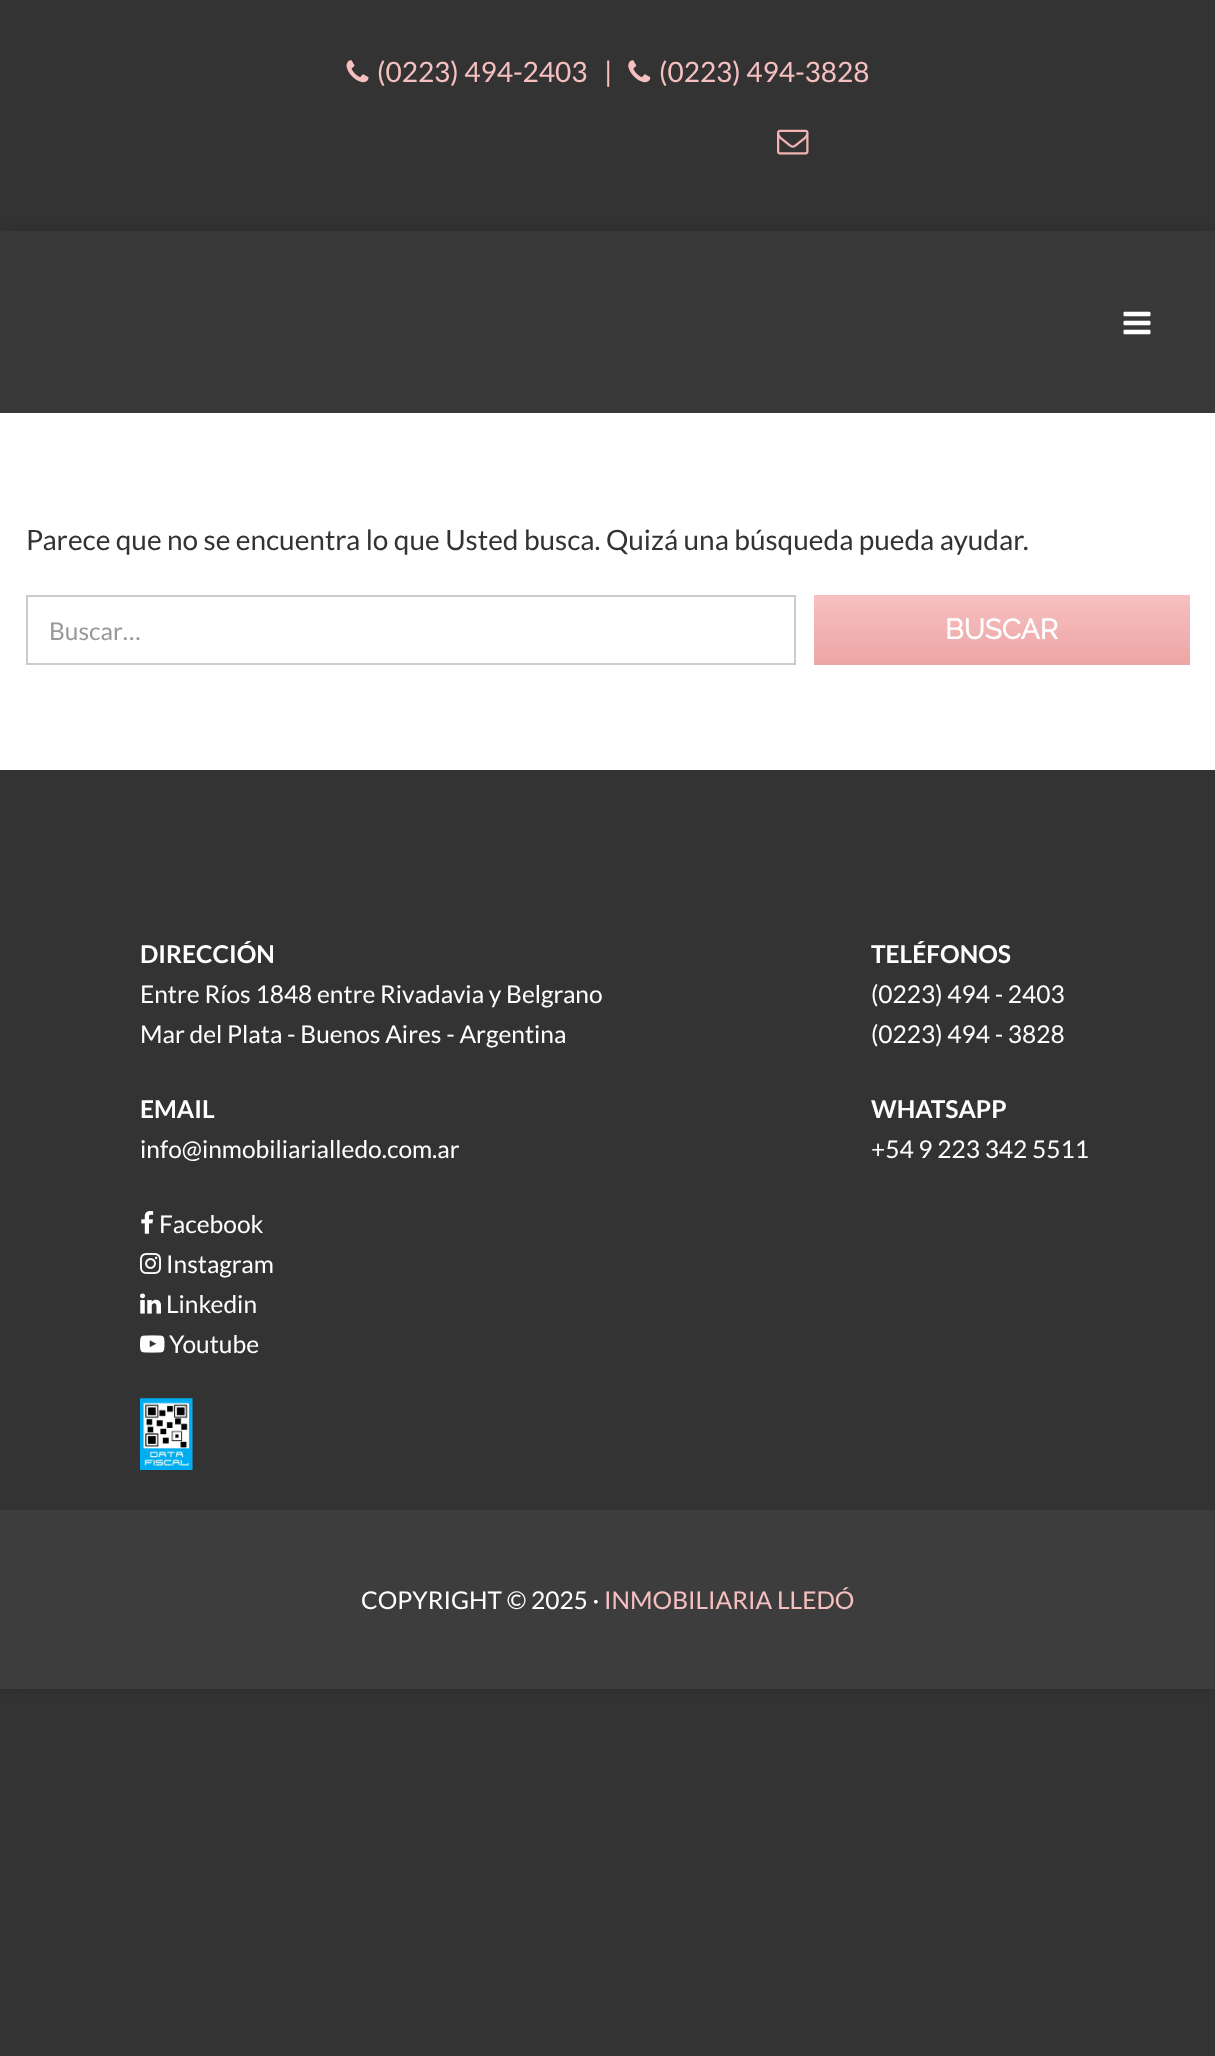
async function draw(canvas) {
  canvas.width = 1215
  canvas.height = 2056
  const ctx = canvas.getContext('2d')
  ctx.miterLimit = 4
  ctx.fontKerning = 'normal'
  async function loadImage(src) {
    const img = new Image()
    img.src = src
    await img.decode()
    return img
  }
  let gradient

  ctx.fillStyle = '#333'
  ctx.fillRect(0, 0, 1215, 2056)
  ctx.drawImage(await loadImage('image0.png'), 346, 60, 23, 23)
  ctx.font = '28px Lato'
  ctx.fillStyle = '#f7c0c0'
  ctx.fillText('(0223) 494-2403', 377, 82)
  ctx.fillText('|', 604, 82)
  ctx.drawImage(await loadImage('image1.png'), 628, 60, 23, 23)
  ctx.fillText('(0223) 494-3828', 659, 82)
  ctx.drawImage(await loadImage('image2.png'), 777, 129, 32, 26)
  ctx.fillStyle = '#00000040'
  ctx.filter = 'blur(9px)'
  ctx.beginPath()
  ctx.rect(4, 235, 1209, 1450)
  ctx.fill()
  ctx.filter = 'none'
  ctx.fillStyle = '#fff'
  ctx.fillRect(0, 413, 1215, 357)
  ctx.fillStyle = '#383838'
  ctx.fillRect(0, 231, 1215, 182)
  ctx.drawImage(await loadImage('image3.png'), 1123, 311, 28, 24)
  ctx.fillStyle = '#333'
  ctx.fillText('Parece que no se encuentra lo que Usted busca. Quizá una búsqueda pueda ayudar.', 26, 550)
  ctx.strokeStyle = '#ccc'
  ctx.lineWidth = 2
  ctx.strokeRect(27, 596, 768, 68)
  ctx.font = '24.5px Lato'
  ctx.fillStyle = '#999'
  ctx.fillText('Buscar…', 49, 640)
  gradient = ctx.createLinearGradient(1002, 595, 1002, 665)
  gradient.addColorStop(0, '#f7c0c0')
  gradient.addColorStop(1, '#eda5a5')
  ctx.fillStyle = gradient
  ctx.fillRect(814, 595, 376, 70)
  ctx.font = 'bold 28px Raleway'
  ctx.fillStyle = '#fff'
  ctx.fillText('BUSCAR', 945, 639)
  ctx.fillStyle = '#333'
  ctx.fillRect(0, 770, 1215, 740)
  ctx.font = 'bold 24.5px Lato'
  ctx.fillStyle = '#fff'
  ctx.fillText('DIRECCIÓN', 140, 963)
  ctx.font = '24.5px Lato'
  ctx.fillText('Entre Ríos 1848 entre Rivadavia y Belgrano', 140, 1003)
  ctx.fillText('Mar del Plata - Buenos Aires - Argentina', 140, 1043)
  ctx.font = 'bold 24.5px Lato'
  ctx.fillText('EMAIL', 140, 1118)
  ctx.font = '24.5px Lato'
  ctx.fillText('info@inmobiliarialledo.com.ar', 140, 1158)
  ctx.font = 'bold 24.5px Lato'
  ctx.fillText('TELÉFONOS', 871, 963)
  ctx.font = '24.5px Lato'
  ctx.fillText('(0223) 494 - 2403', 871, 1003)
  ctx.fillText('(0223) 494 - 3828', 871, 1043)
  ctx.font = 'bold 24.5px Lato'
  ctx.fillText('WHATSAPP', 871, 1118)
  ctx.font = '24.5px Lato'
  ctx.fillText('+54 9 223 342 5511', 871, 1158)
  ctx.drawImage(await loadImage('image4.png'), 141, 1211, 13, 23)
  ctx.fillText('Facebook', 159, 1233)
  ctx.drawImage(await loadImage('image5.png'), 140, 1253, 21, 21)
  ctx.fillText('Instagram', 166, 1273)
  ctx.drawImage(await loadImage('image6.png'), 140, 1293, 21, 21)
  ctx.fillText('Linkedin', 166, 1313)
  ctx.drawImage(await loadImage('image7.png'), 140, 1335, 25, 18)
  ctx.fillText('Youtube', 169, 1353)
  ctx.drawImage(await loadImage('image8.png'), 140, 1398, 53, 72)
  ctx.fillStyle = '#3d3d3d'
  ctx.fillRect(0, 1510, 1215, 179)
  ctx.fillStyle = '#fff'
  ctx.fillText('COPYRIGHT © 2025 ·', 361, 1609)
  ctx.fillStyle = '#f7c0c0'
  ctx.fillText('INMOBILIARIA LLEDÓ', 604, 1609)
}

draw(document.querySelector('canvas'))
